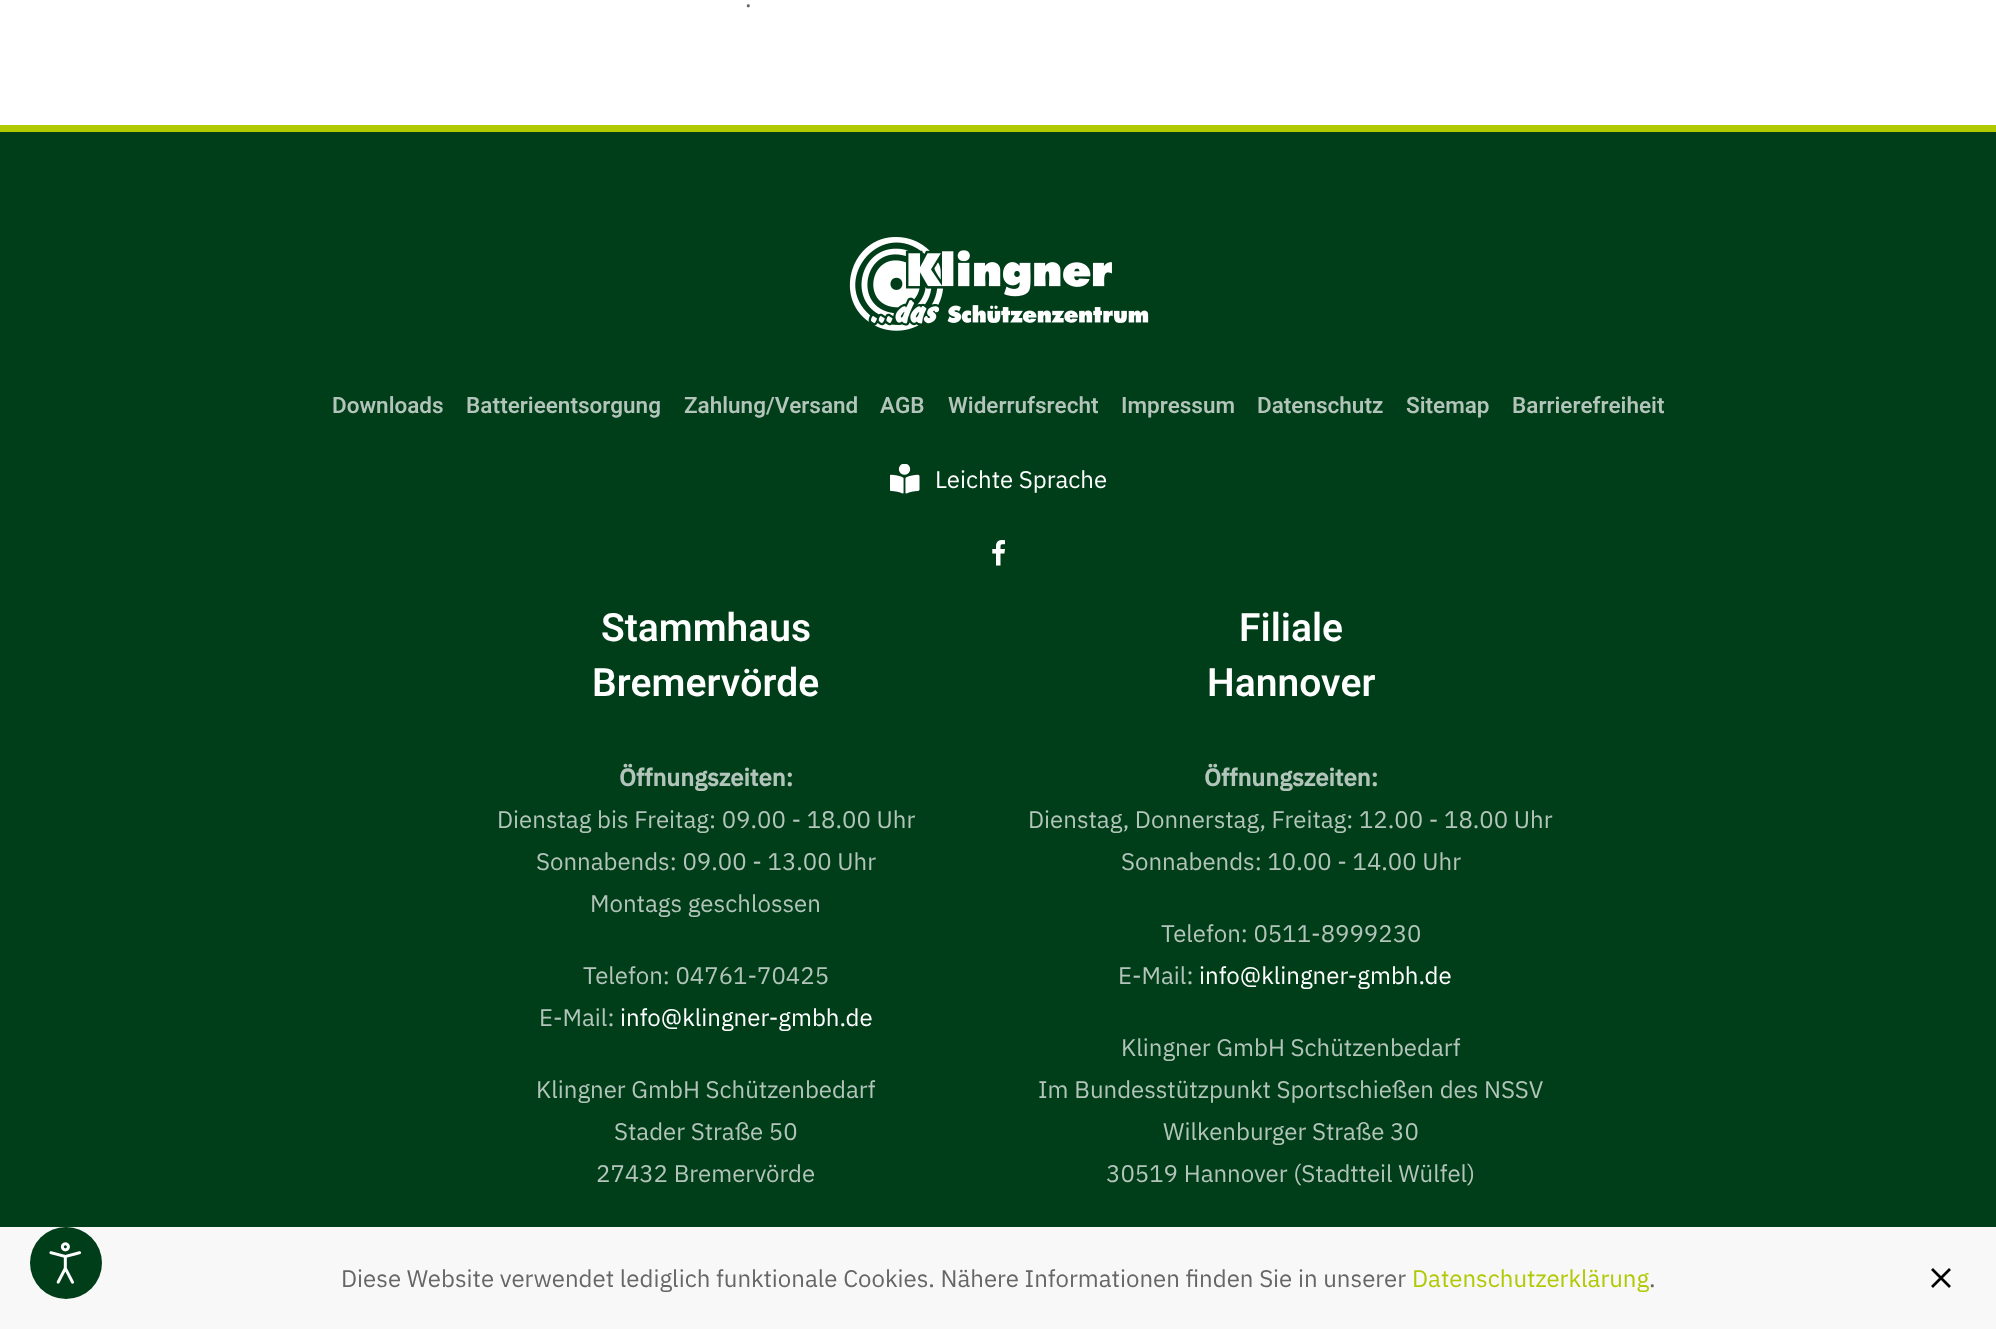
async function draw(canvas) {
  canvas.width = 1996
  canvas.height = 1329
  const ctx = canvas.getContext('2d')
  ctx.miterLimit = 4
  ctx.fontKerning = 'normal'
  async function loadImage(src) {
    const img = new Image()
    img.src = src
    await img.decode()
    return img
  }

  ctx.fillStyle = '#fff'
  ctx.fillRect(0, 0, 1996, 1329)
  ctx.font = '24px IBM Plex Sans'
  ctx.fillStyle = '#666'
  ctx.fillText('.', 745, 7)
  ctx.fillStyle = '#003d19'
  ctx.fillRect(0, 132, 1996, 1095)
  ctx.fillStyle = '#b1c903'
  ctx.fillRect(0, 125, 1996, 7)
  ctx.drawImage(await loadImage('image0.png'), 849, 237, 300, 94)
  ctx.font = '600 22.5px Heebo'
  ctx.fillStyle = '#b3c5ba'
  ctx.fillText('Downloads', 332, 413)
  ctx.fillText('Batterieentsorgung', 466, 413)
  ctx.fillText('Zahlung/Versand', 684, 413)
  ctx.fillText('AGB', 880, 413)
  ctx.fillText('Widerrufsrecht', 948, 413)
  ctx.fillText('Impressum', 1121, 413)
  ctx.fillText('Datenschutz', 1257, 413)
  ctx.fillText('Sitemap', 1406, 413)
  ctx.fillText('Barrierefreiheit', 1512, 413)
  ctx.drawImage(await loadImage('image1.png'), 890, 464, 30, 30)
  ctx.font = '24px IBM Plex Sans'
  ctx.fillStyle = '#fff'
  ctx.fillText('Leichte Sprache', 935, 488)
  ctx.drawImage(await loadImage('image2.png'), 992, 540, 13, 26)
  ctx.font = '600 39px Heebo'
  ctx.fillText('Stammhaus', 601, 641)
  ctx.fillText('Bremervörde', 592, 696)
  ctx.font = 'bold 24px IBM Plex Sans'
  ctx.fillStyle = '#b3c5ba'
  ctx.fillText('Öffnungszeiten:', 619, 786)
  ctx.font = '24px IBM Plex Sans'
  ctx.fillText('Dienstag bis Freitag: 09.00 - 18.00 Uhr', 497, 828)
  ctx.fillText('Sonnabends: 09.00 - 13.00 Uhr', 536, 870)
  ctx.fillText('Montags geschlossen', 590, 912)
  ctx.fillText('Telefon: 04761-70425', 583, 984)
  ctx.fillText('E-Mail:', 539, 1026)
  ctx.fillStyle = '#fff'
  ctx.fillText('info@klingner-gmbh.de', 620, 1026)
  ctx.fillStyle = '#b3c5ba'
  ctx.fillText('Klingner GmbH Schützenbedarf', 536, 1098)
  ctx.fillText('Stader Straße 50', 614, 1140)
  ctx.fillText('27432 Bremervörde', 596, 1182)
  ctx.font = '600 39px Heebo'
  ctx.fillStyle = '#fff'
  ctx.fillText('Filiale', 1239, 641)
  ctx.fillText('Hannover', 1207, 696)
  ctx.font = 'bold 24px IBM Plex Sans'
  ctx.fillStyle = '#b3c5ba'
  ctx.fillText('Öffnungszeiten:', 1204, 786)
  ctx.font = '24px IBM Plex Sans'
  ctx.fillText('Dienstag, Donnerstag, Freitag: 12.00 - 18.00 Uhr', 1028, 828)
  ctx.fillText('Sonnabends: 10.00 - 14.00 Uhr', 1121, 870)
  ctx.fillText('Telefon: 0511-8999230', 1161, 942)
  ctx.fillText('E-Mail:', 1118, 984)
  ctx.fillStyle = '#fff'
  ctx.fillText('info@klingner-gmbh.de', 1199, 984)
  ctx.fillStyle = '#b3c5ba'
  ctx.fillText('Klingner GmbH Schützenbedarf', 1121, 1056)
  ctx.fillText('Im Bundesstützpunkt Sportschießen des NSSV', 1038, 1098)
  ctx.fillText('Wilkenburger Straße 30', 1163, 1140)
  ctx.fillText('30519 Hannover (Stadtteil Wülfel)', 1106, 1182)
  ctx.fillStyle = '#f8f8f8'
  ctx.fillRect(0, 1227, 1996, 102)
  ctx.fillStyle = '#003d19'
  ctx.beginPath()
  ctx.arc(66, 1263, 36, 0, 2 * Math.PI)
  ctx.fill()
  ctx.drawImage(await loadImage('image3.png'), 49, 1242, 33, 42)
  ctx.fillStyle = '#666'
  ctx.fillText('Diese Website verwendet lediglich funktionale Cookies. Nähere Informationen finden Sie in unserer', 341, 1287)
  ctx.fillStyle = '#b1c903'
  ctx.fillText('Datenschutzerklärung', 1412, 1287)
  ctx.fillStyle = '#666'
  ctx.fillText('.', 1649, 1287)
  ctx.beginPath()
  ctx.moveTo(1932, 1269)
  ctx.lineTo(1950, 1287)
  ctx.moveTo(1950, 1269)
  ctx.lineTo(1932, 1287)
  ctx.strokeStyle = '#000'
  ctx.lineWidth = 2.7
  ctx.stroke()
}

draw(document.querySelector('canvas'))
